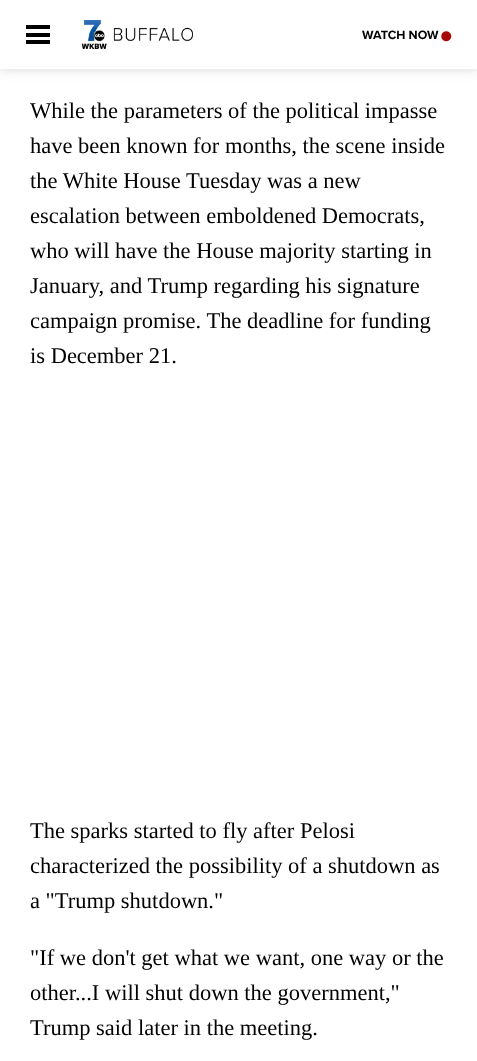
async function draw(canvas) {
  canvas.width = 477
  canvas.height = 1061
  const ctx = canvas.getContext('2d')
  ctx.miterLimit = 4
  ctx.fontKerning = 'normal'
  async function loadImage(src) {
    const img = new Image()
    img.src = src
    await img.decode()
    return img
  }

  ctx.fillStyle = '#fff'
  ctx.fillRect(0, 0, 477, 1061)
  ctx.save()
  ctx.beginPath()
  ctx.moveTo(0, 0)
  ctx.lineTo(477, 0)
  ctx.lineTo(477, 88)
  ctx.lineTo(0, 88)
  ctx.closePath()
  ctx.moveTo(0, 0)
  ctx.lineTo(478, 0)
  ctx.lineTo(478, 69)
  ctx.lineTo(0, 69)
  ctx.closePath()
  ctx.clip('evenodd')
  ctx.fillStyle = '#cccccccc'
  ctx.filter = 'blur(6px)'
  ctx.beginPath()
  ctx.rect(0, 0, 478, 69)
  ctx.fill()
  ctx.filter = 'none'
  ctx.restore()
  ctx.fillStyle = '#fffffffa'
  ctx.fillRect(0, 68, 477, 1)
  ctx.fillStyle = '#000'
  ctx.fillRect(26, 25, 24, 4)
  ctx.fillRect(26, 33, 24, 4)
  ctx.fillRect(26, 40, 24, 4)
  ctx.drawImage(await loadImage('image0.png'), 81, 20, 112, 29)
  ctx.font = 'bold 12.5px Proxima Nova'
  ctx.fillText('WATCH NOW', 362, 39)
  ctx.drawImage(await loadImage('image1.png'), 441, 31, 11, 11)
  ctx.font = '22.5px Liberation Serif'
  ctx.fillText('While the parameters of the political impasse', 30, 118)
  ctx.fillText('have been known for months, the scene inside', 30, 153)
  ctx.fillText('the White House Tuesday was a new', 30, 188)
  ctx.fillText('escalation between emboldened Democrats,', 30, 223)
  ctx.fillText('who will have the House majority starting in', 30, 258)
  ctx.fillText('January, and Trump regarding his signature', 30, 293)
  ctx.fillText('campaign promise. The deadline for funding', 30, 328)
  ctx.fillText('is December 21.', 30, 363)
  ctx.fillText('The sparks started to fly after Pelosi', 30, 838)
  ctx.fillText('characterized the possibility of a shutdown as', 30, 873)
  ctx.fillText('a "Trump shutdown."', 30, 908)
  ctx.fillText('"If we don\'t get what we want, one way or the', 30, 965)
  ctx.fillText('other...I will shut down the government,"', 30, 1000)
  ctx.fillText('Trump said later in the meeting.', 30, 1035)
}

draw(document.querySelector('canvas'))
